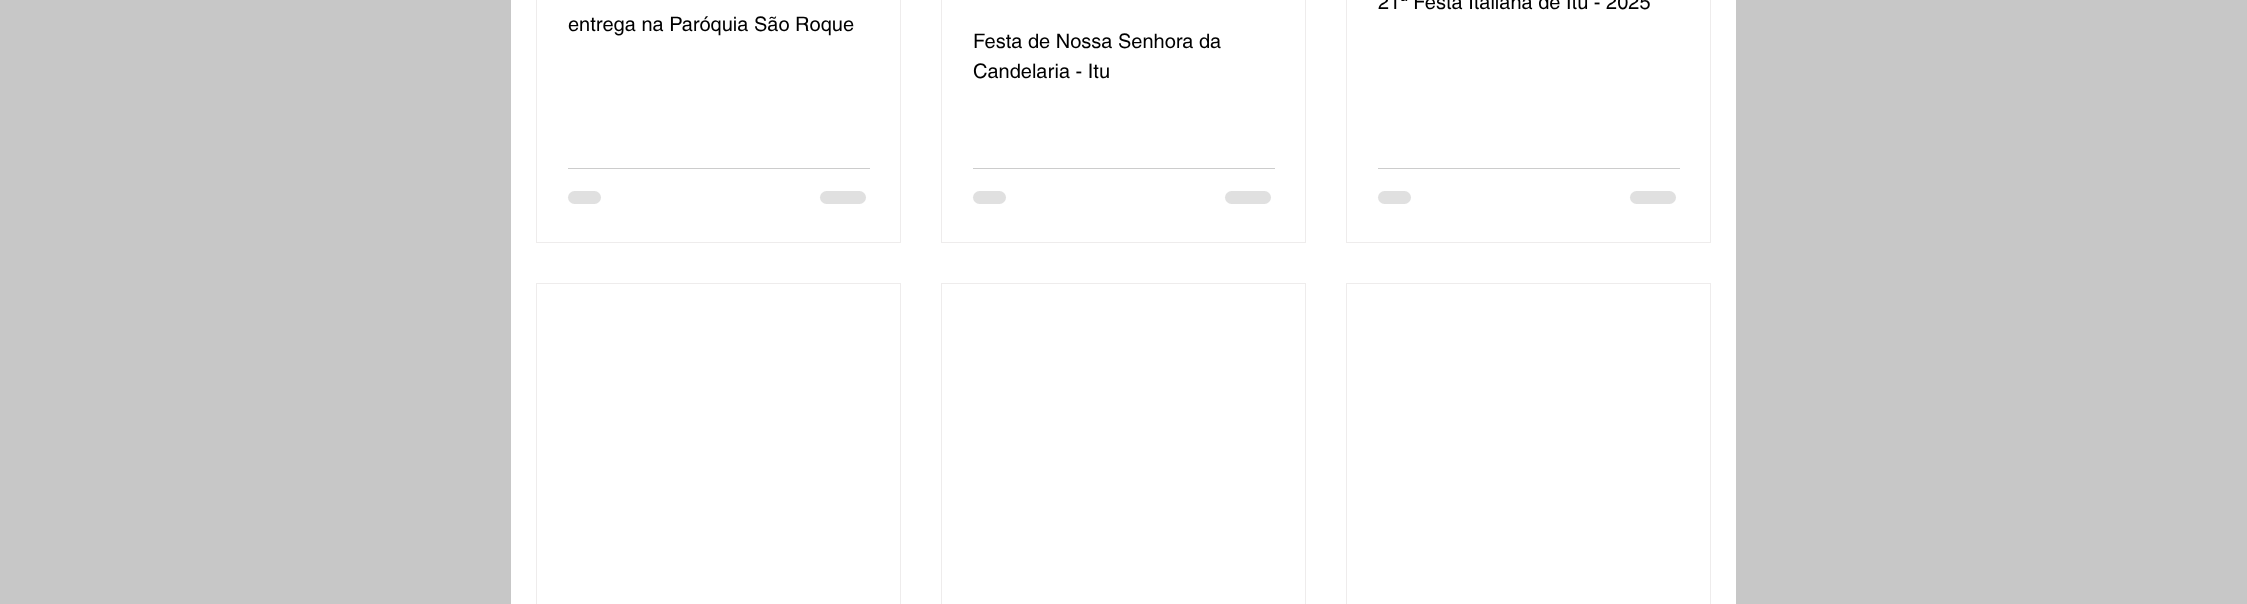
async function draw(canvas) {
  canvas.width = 2247
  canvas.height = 604
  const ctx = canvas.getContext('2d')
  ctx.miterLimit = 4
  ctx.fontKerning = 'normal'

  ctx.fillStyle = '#c7c7c7'
  ctx.fillRect(0, 0, 2247, 604)
  ctx.fillStyle = '#fff'
  ctx.fillRect(511, 0, 1225, 604)
  ctx.strokeStyle = '#eeecec'
  ctx.strokeRect(1346.5, -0.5, 364, 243)
  ctx.font = '20px helvetica'
  ctx.fillStyle = '#000'
  ctx.fillText('21ª Festa Italiana de Itu - 2025', 1378, 9)
  ctx.fillStyle = '#ccc'
  ctx.fillRect(1378, 168, 302, 1)
  ctx.fillStyle = '#e0e0e0'
  ctx.beginPath()
  ctx.roundRect(1378, 191, 33, 13, 6.5)
  ctx.fill()
  ctx.beginPath()
  ctx.roundRect(1630, 191, 46, 13, 6.5)
  ctx.fill()
  ctx.strokeRect(536.5, -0.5, 364, 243)
  ctx.fillStyle = '#000'
  ctx.fillText('entrega na Paróquia São Roque', 568, 31)
  ctx.fillStyle = '#ccc'
  ctx.fillRect(568, 168, 302, 1)
  ctx.fillStyle = '#e0e0e0'
  ctx.beginPath()
  ctx.roundRect(568, 191, 33, 13, 6.5)
  ctx.fill()
  ctx.beginPath()
  ctx.roundRect(820, 191, 46, 13, 6.5)
  ctx.fill()
  ctx.strokeRect(941.5, -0.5, 364, 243)
  ctx.fillStyle = '#000'
  ctx.fillText('Festa de Nossa Senhora da', 973, 48)
  ctx.fillText('Candelaria - Itu', 973, 78)
  ctx.fillStyle = '#ccc'
  ctx.fillRect(973, 168, 302, 1)
  ctx.fillStyle = '#e0e0e0'
  ctx.beginPath()
  ctx.roundRect(973, 191, 33, 13, 6.5)
  ctx.fill()
  ctx.beginPath()
  ctx.roundRect(1225, 191, 46, 13, 6.5)
  ctx.fill()
  ctx.strokeRect(536.5, 283.5, 364, 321)
  ctx.strokeRect(941.5, 283.5, 364, 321)
  ctx.strokeRect(1346.5, 283.5, 364, 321)
}

draw(document.querySelector('canvas'))
